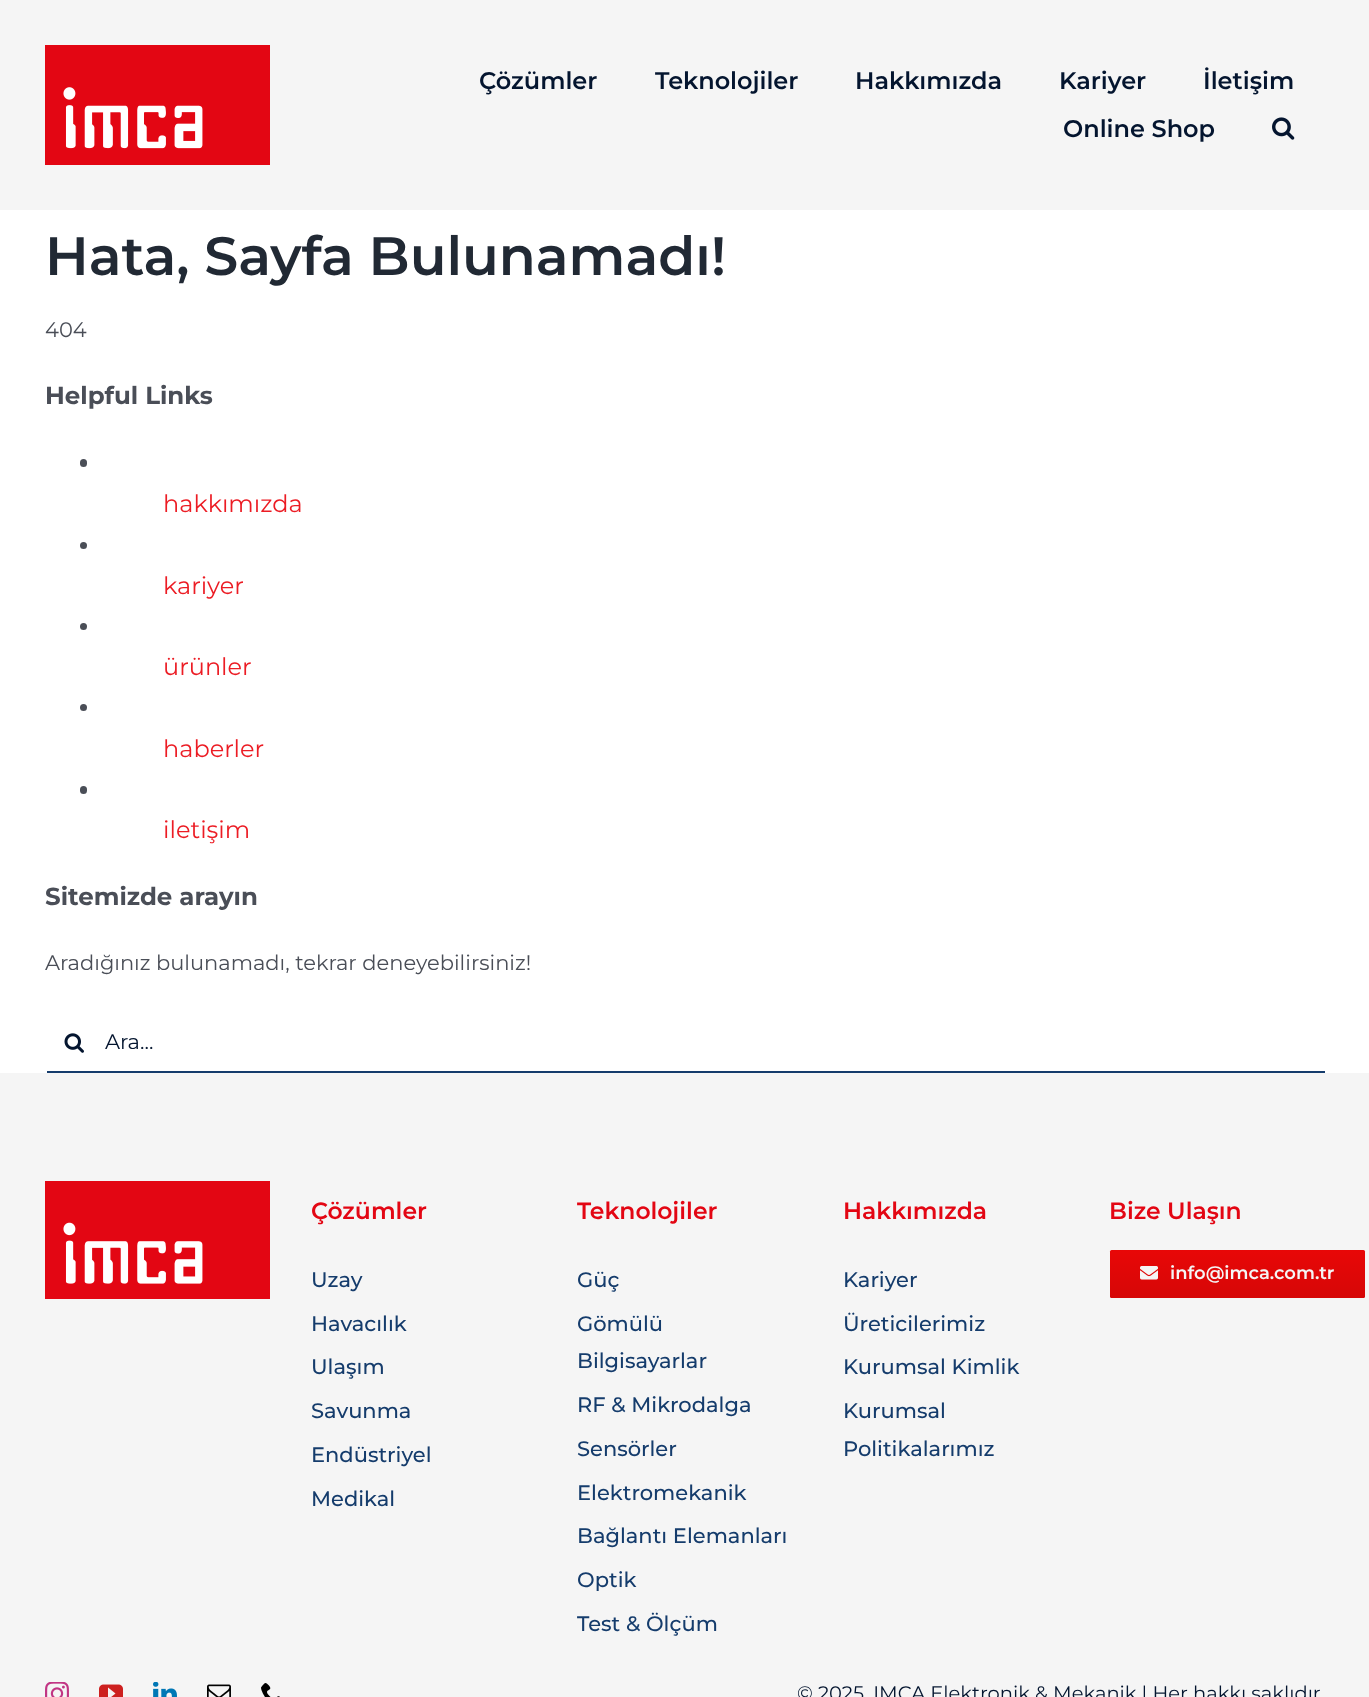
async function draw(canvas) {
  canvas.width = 1369
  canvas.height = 1697
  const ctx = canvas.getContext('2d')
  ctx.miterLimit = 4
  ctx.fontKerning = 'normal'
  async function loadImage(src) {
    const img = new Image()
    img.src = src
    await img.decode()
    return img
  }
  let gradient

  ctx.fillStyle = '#fff'
  ctx.fillRect(0, 0, 1369, 1697)
  ctx.fillStyle = '#f5f5f5'
  ctx.fillRect(0, 0, 1369, 210)
  ctx.drawImage(await loadImage('image0.png'), 45, 45, 225, 120)
  ctx.font = '600 24px Montserrat'
  ctx.fillStyle = '#04152f'
  ctx.fillText('Çözümler', 479, 89)
  ctx.fillText('Teknolojiler', 655, 89)
  ctx.fillText('Hakkımızda', 855, 89)
  ctx.fillText('Kariyer', 1059, 89)
  ctx.fillText('İletişim', 1203, 89)
  ctx.fillText('Online Shop', 1063, 137)
  ctx.drawImage(await loadImage('image1.png'), 1272, 117, 23, 23)
  ctx.font = '600 54px Montserrat'
  ctx.fillStyle = '#212934'
  ctx.fillText('Hata, Sayfa Bulunamadı!', 45, 275)
  ctx.font = '21px Montserrat'
  ctx.fillStyle = '#4a4e57'
  ctx.fillText('404', 45, 337)
  ctx.font = 'bold 24.5px Montserrat'
  ctx.fillText('Helpful Links', 45, 404)
  ctx.beginPath()
  ctx.roundRect(80, 459, 7, 8, 3.5)
  ctx.fill()
  ctx.font = '24px Montserrat'
  ctx.fillStyle = '#ec1c24'
  ctx.fillText('hakkımızda', 163, 512)
  ctx.fillStyle = '#4a4e57'
  ctx.beginPath()
  ctx.arc(83.5, 545.5, 3.5, 0, 2 * Math.PI)
  ctx.fill()
  ctx.fillStyle = '#ec1c24'
  ctx.fillText('kariyer', 163, 594)
  ctx.fillStyle = '#4a4e57'
  ctx.beginPath()
  ctx.arc(83.5, 626.5, 3.5, 0, 2 * Math.PI)
  ctx.fill()
  ctx.fillStyle = '#ec1c24'
  ctx.fillText('ürünler', 163, 675)
  ctx.fillStyle = '#4a4e57'
  ctx.beginPath()
  ctx.arc(83.5, 707.5, 3.5, 0, 2 * Math.PI)
  ctx.fill()
  ctx.fillStyle = '#ec1c24'
  ctx.fillText('haberler', 163, 757)
  ctx.fillStyle = '#4a4e57'
  ctx.beginPath()
  ctx.roundRect(80, 786, 7, 8, 3.5)
  ctx.fill()
  ctx.fillStyle = '#ec1c24'
  ctx.fillText('iletişim', 163, 838)
  ctx.font = 'bold 24.5px Montserrat'
  ctx.fillStyle = '#4a4e57'
  ctx.fillText('Sitemizde arayın', 45, 905)
  ctx.font = '21px Montserrat'
  ctx.fillText('Aradığınız bulunamadı, tekrar deneyebilirsiniz!', 45, 970)
  ctx.drawImage(await loadImage('image2.png'), 64, 1033, 20, 20)
  ctx.fillStyle = '#153c6c'
  ctx.fillRect(47, 1071, 1278, 2)
  ctx.fillStyle = '#04152f'
  ctx.fillText('Ara...', 105, 1049)
  ctx.fillStyle = '#f5f5f5'
  ctx.fillRect(0, 1073, 1369, 624)
  ctx.drawImage(await loadImage('image3.png'), 45, 1181, 225, 118)
  ctx.font = '600 23.5px Montserrat'
  ctx.fillStyle = '#e30613'
  ctx.fillText('Çözümler', 311, 1219)
  ctx.font = '500 21px Montserrat'
  ctx.fillStyle = '#153c6c'
  ctx.fillText('Uzay', 311, 1287)
  ctx.fillText('Havacılık', 311, 1331)
  ctx.fillText('Ulaşım', 311, 1374)
  ctx.fillText('Savunma', 311, 1418)
  ctx.fillText('Endüstriyel', 311, 1462)
  ctx.fillText('Medikal', 311, 1506)
  ctx.font = '600 23.5px Montserrat'
  ctx.fillStyle = '#e30613'
  ctx.fillText('Teknolojiler', 577, 1219)
  ctx.font = '500 21px Montserrat'
  ctx.fillStyle = '#153c6c'
  ctx.fillText('Güç', 577, 1287)
  ctx.fillText('Gömülü', 577, 1331)
  ctx.fillText('Bilgisayarlar', 577, 1368)
  ctx.fillText('RF & Mikrodalga', 577, 1412)
  ctx.fillText('Sensörler', 577, 1456)
  ctx.fillText('Elektromekanik', 577, 1500)
  ctx.fillText('Bağlantı Elemanları', 577, 1543)
  ctx.fillText('Optik', 577, 1587)
  ctx.fillText('Test & Ölçüm', 577, 1631)
  ctx.font = '600 23.5px Montserrat'
  ctx.fillStyle = '#e30613'
  ctx.fillText('Hakkımızda', 843, 1219)
  ctx.font = '500 21px Montserrat'
  ctx.fillStyle = '#153c6c'
  ctx.fillText('Kariyer', 843, 1287)
  ctx.fillText('Üreticilerimiz', 843, 1331)
  ctx.fillText('Kurumsal Kimlik', 843, 1374)
  ctx.fillText('Kurumsal', 843, 1418)
  ctx.fillText('Politikalarımız', 843, 1456)
  ctx.font = '600 23.5px Montserrat'
  ctx.fillStyle = '#e30613'
  ctx.fillText('Bize Ulaşın', 1109, 1219)
  gradient = ctx.createLinearGradient(1238, 1250, 1238, 1298)
  gradient.addColorStop(0, '#e80707')
  gradient.addColorStop(1, '#d60707')
  ctx.fillStyle = gradient
  ctx.beginPath()
  ctx.roundRect(1110, 1250, 255, 48, 1.5)
  ctx.fill()
  ctx.drawImage(await loadImage('image4.png'), 1140, 1266, 18, 14)
  ctx.font = '600 18px Montserrat'
  ctx.fillStyle = '#f5f5f5'
  ctx.fillText('info@imca.com.tr', 1170, 1279)
  ctx.drawImage(await loadImage('image5.png'), 45, 1682, 24, 15)
  ctx.drawImage(await loadImage('image6.png'), 99, 1684, 24, 13)
  ctx.drawImage(await loadImage('image7.png'), 153, 1682, 24, 15)
  ctx.drawImage(await loadImage('image8.png'), 207, 1684, 24, 13)
  ctx.drawImage(await loadImage('image9.png'), 261, 1683, 19, 14)
  ctx.font = '19.5px Montserrat'
  ctx.fillStyle = '#04152f'
  ctx.fillText('© 2025. IMCA Elektronik & Mekanik | Her hakkı saklıdır', 797, 1700)
}

draw(document.querySelector('canvas'))
